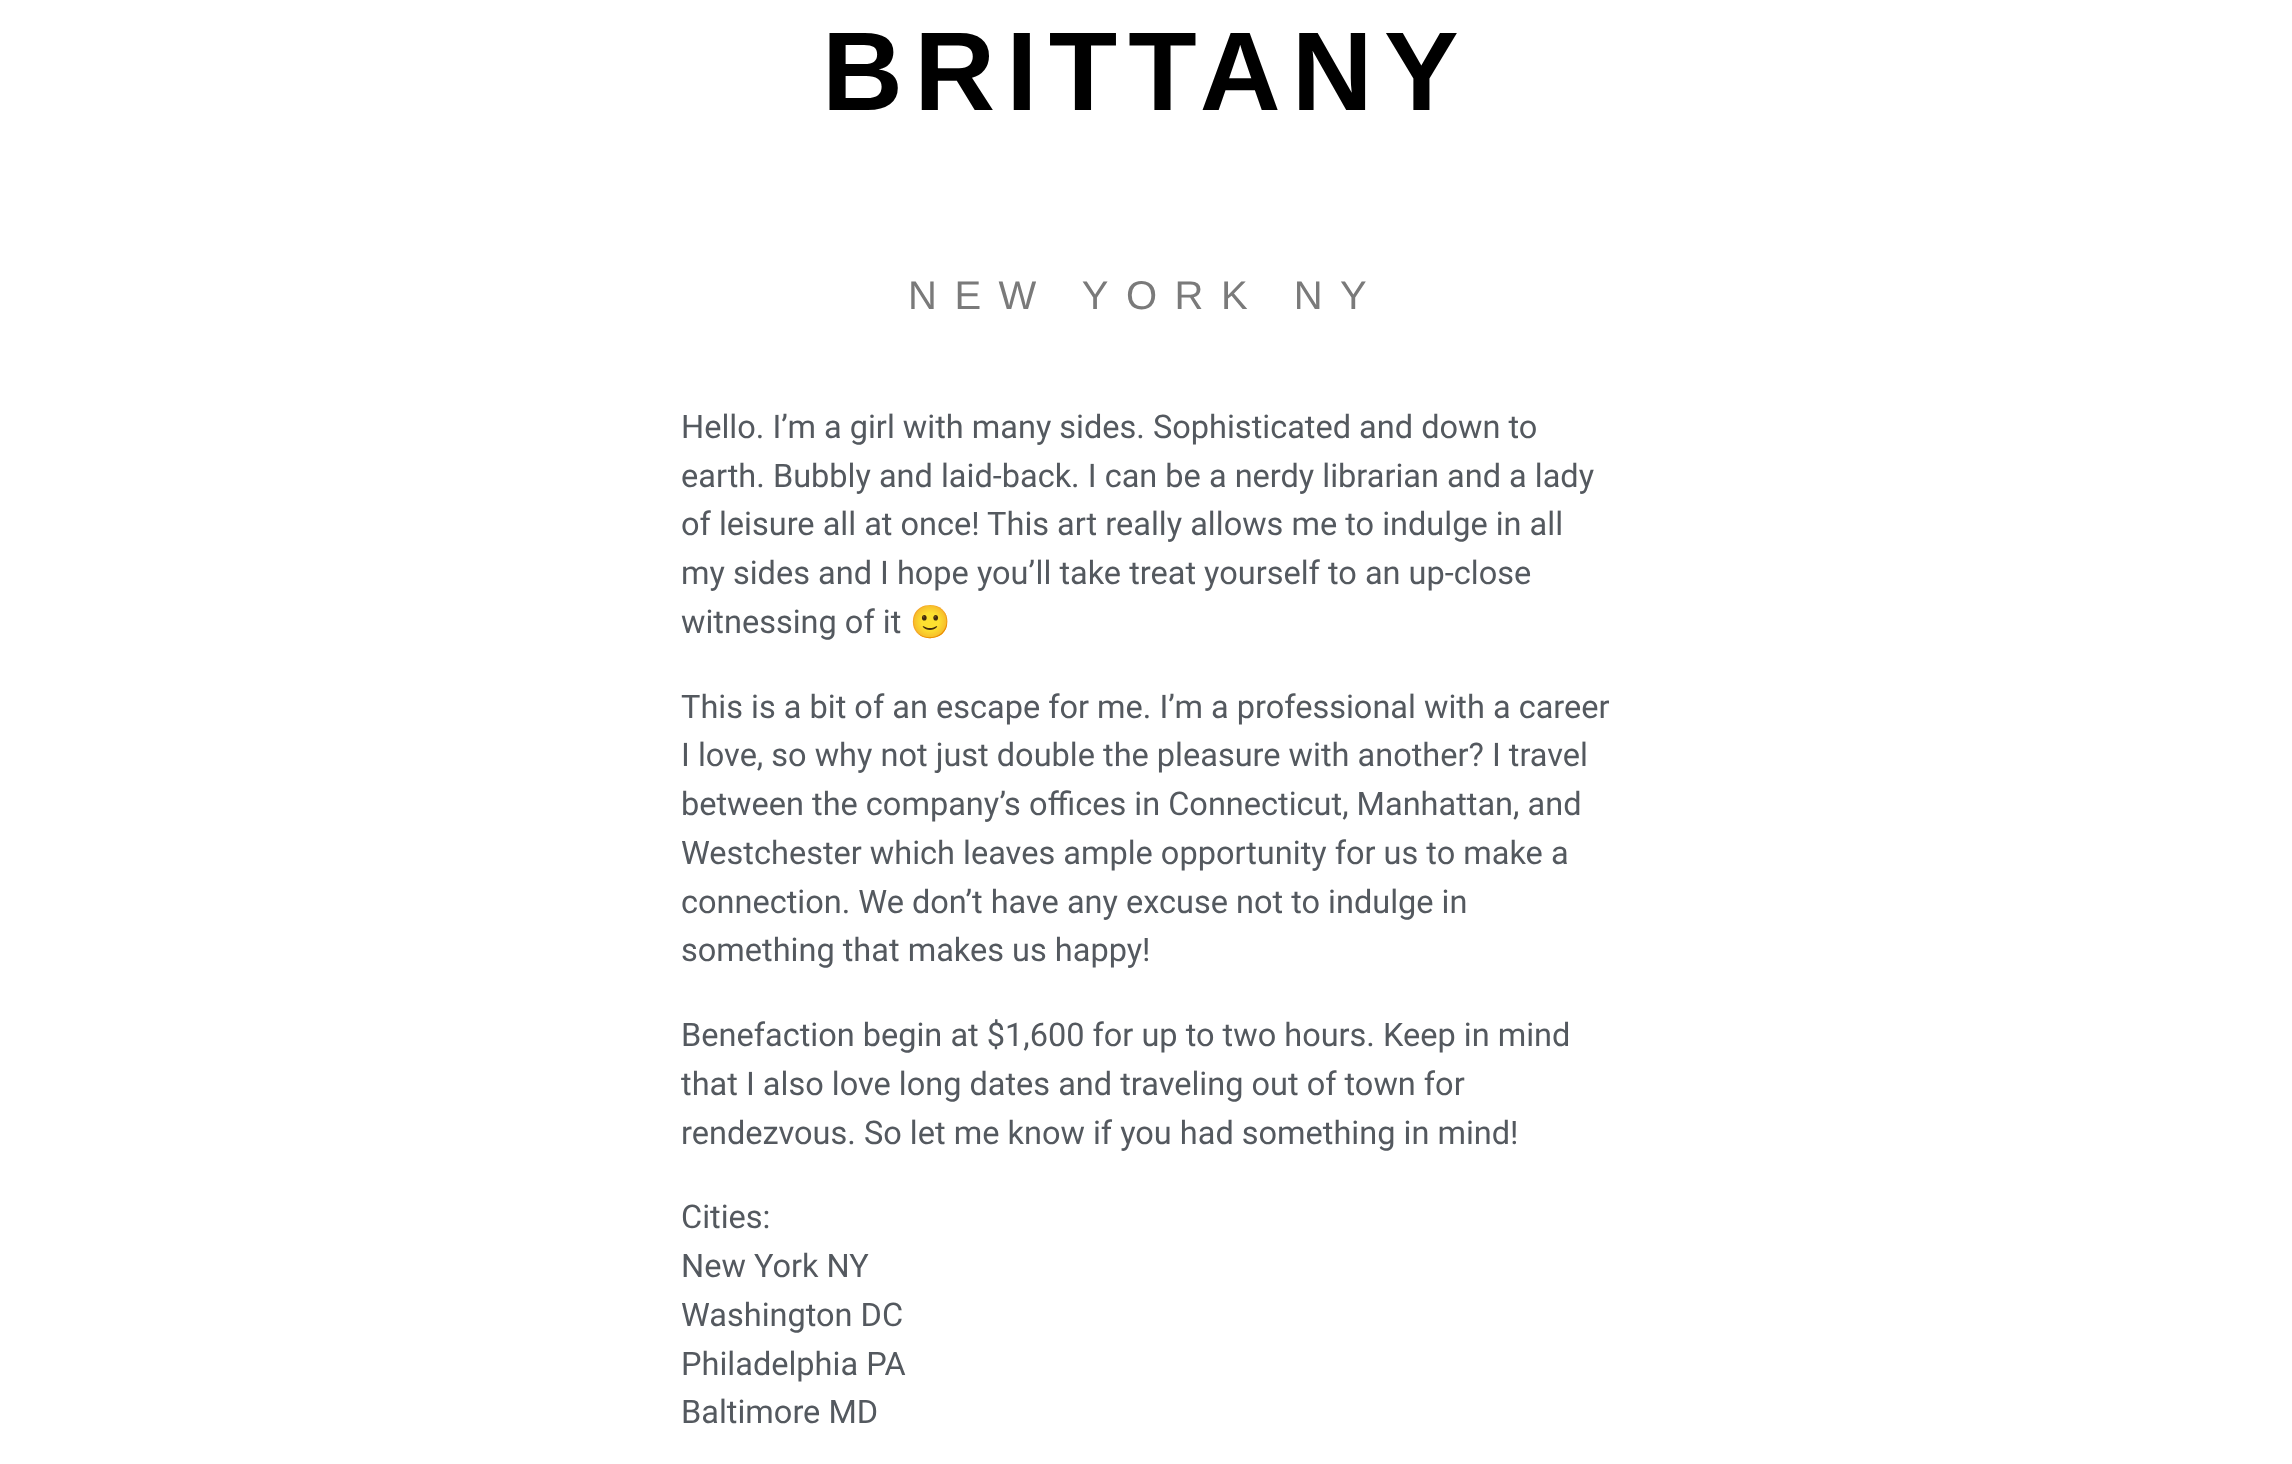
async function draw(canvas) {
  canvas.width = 2292
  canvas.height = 1464
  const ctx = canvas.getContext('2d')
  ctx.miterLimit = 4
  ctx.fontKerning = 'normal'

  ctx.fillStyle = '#fff'
  ctx.fillRect(0, 0, 2292, 1464)
  ctx.letterSpacing = '11.25px'
  ctx.font = 'bold 112px Liberation Sans'
  ctx.fillStyle = '#000'
  ctx.fillText('BRITTANY', 822, 110)
  ctx.letterSpacing = '17.5px'
  ctx.font = '40px Liberation Sans'
  ctx.fillStyle = '#7a7a7a'
  ctx.fillText('NEW YORK NY', 908, 309)
  ctx.letterSpacing = '0px'
  ctx.font = '32.5px Roboto'
  ctx.fillStyle = '#54595f'
  ctx.fillText('Hello. I’m a girl with many sides. Sophisticated and down to', 681, 438)
  ctx.fillText('earth. Bubbly and laid-back. I can be a nerdy librarian and a lady', 681, 487)
  ctx.fillText('of leisure all at once! This art really allows me to indulge in all', 681, 535)
  ctx.fillText('my sides and I hope you’ll take treat yourself to an up-close', 681, 584)
  ctx.fillText('witnessing of it', 681, 633)
  ctx.font = '32.5px Noto Color Emoji'
  ctx.fillText('🙂', 910, 633)
  ctx.font = '32.5px Roboto'
  ctx.fillText('This is a bit of an escape for me. I’m a professional with a career', 681, 718)
  ctx.fillText('I love, so why not just double the pleasure with another? I travel', 681, 766)
  ctx.fillText('between the company’s offices in Connecticut, Manhattan, and', 681, 815)
  ctx.fillText('Westchester which leaves ample opportunity for us to make a', 681, 864)
  ctx.fillText('connection. We don’t have any excuse not to indulge in', 681, 913)
  ctx.fillText('something that makes us happy!', 681, 961)
  ctx.fillText('Benefaction begin at $1,600 for up to two hours. Keep in mind', 681, 1046)
  ctx.fillText('that I also love long dates and traveling out of town for', 681, 1095)
  ctx.fillText('rendezvous. So let me know if you had something in mind!', 681, 1144)
  ctx.fillText('Cities:', 681, 1228)
  ctx.fillText('New York NY', 681, 1277)
  ctx.fillText('Washington DC', 681, 1326)
  ctx.fillText('Philadelphia PA', 681, 1375)
  ctx.fillText('Baltimore MD', 681, 1423)
}

draw(document.querySelector('canvas'))
